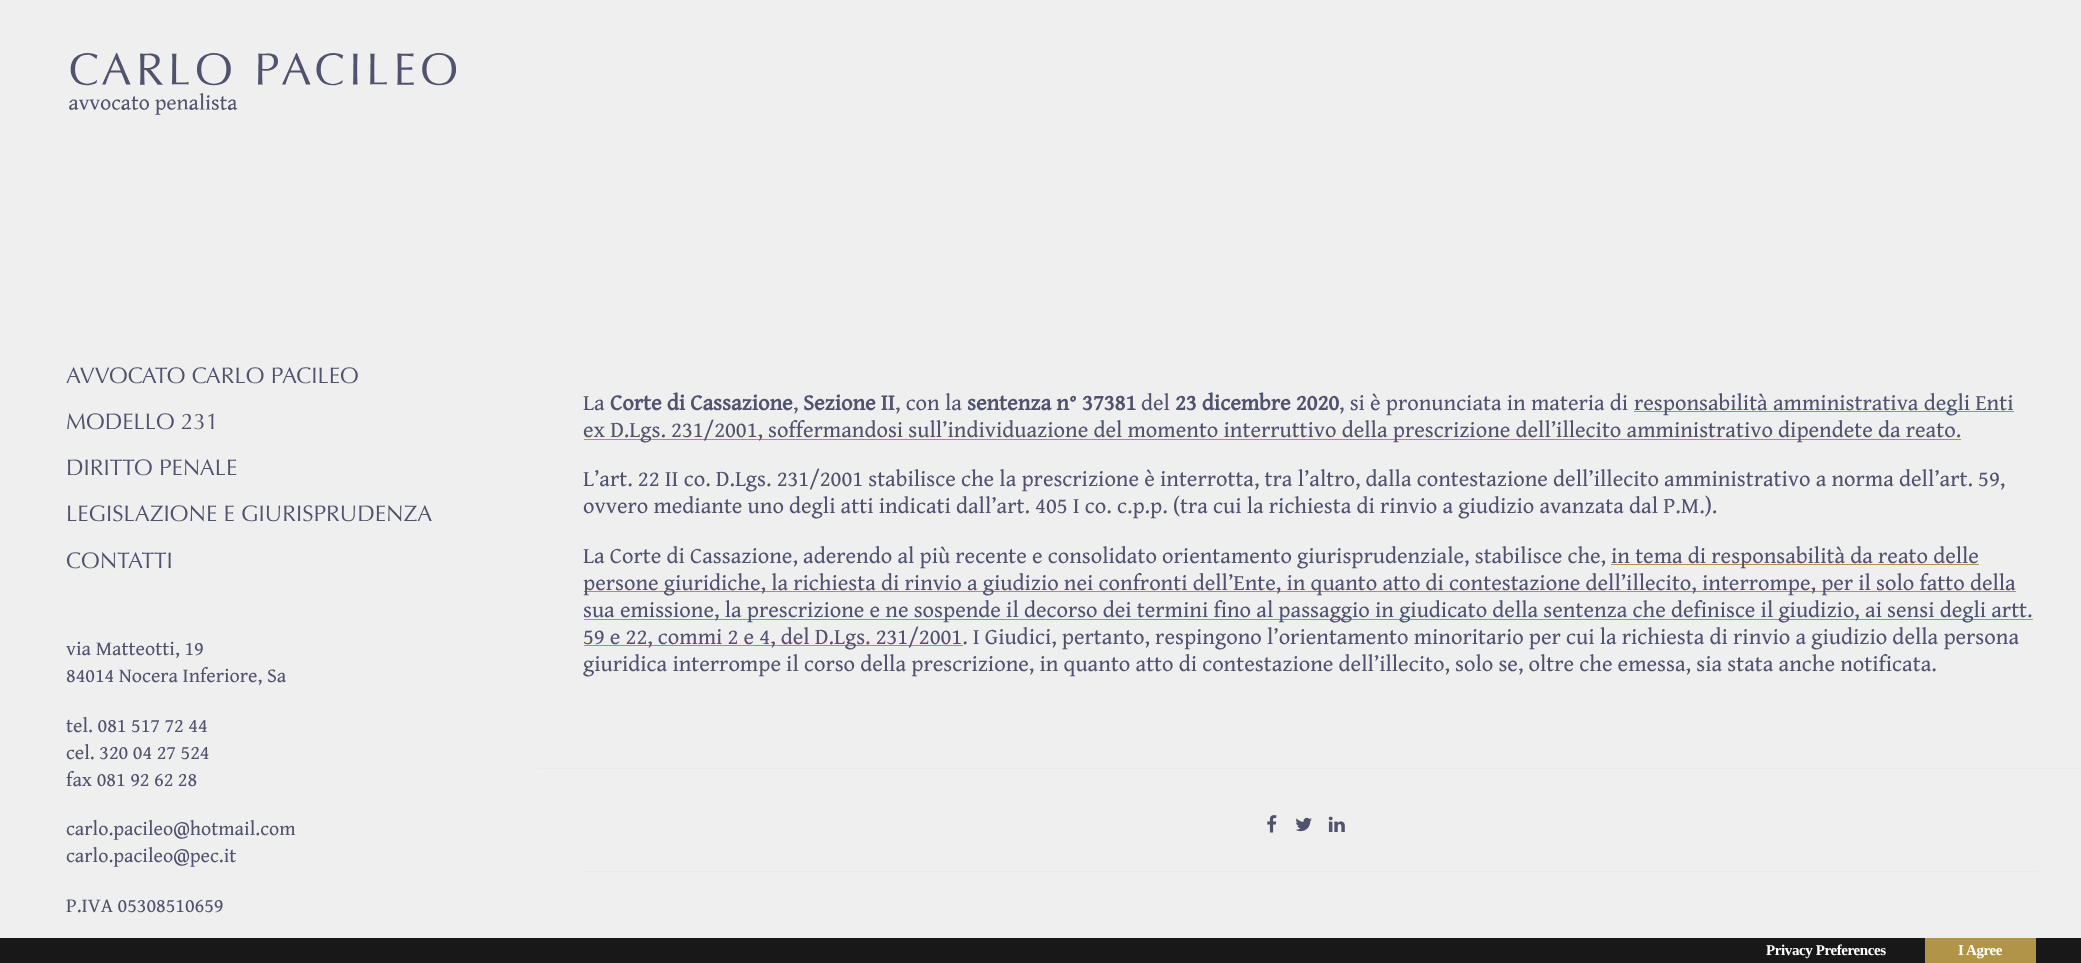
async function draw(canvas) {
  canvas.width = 2081
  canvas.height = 963
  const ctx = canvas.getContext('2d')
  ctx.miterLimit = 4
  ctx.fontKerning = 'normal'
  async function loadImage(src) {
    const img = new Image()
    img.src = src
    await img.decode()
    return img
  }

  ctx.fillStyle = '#efefef'
  ctx.fillRect(0, 0, 2081, 963)
  ctx.drawImage(await loadImage('image0.png'), 69, 53, 388, 62)
  ctx.font = '22.5px Optima'
  ctx.fillStyle = '#50526e'
  ctx.fillText('AVVOCATO CARLO PACILEO', 66, 383)
  ctx.fillText('MODELLO 231', 66, 429)
  ctx.fillText('DIRITTO PENALE', 66, 475)
  ctx.fillText('LEGISLAZIONE E GIURISPRUDENZA', 66, 521)
  ctx.fillText('CONTATTI', 66, 568)
  ctx.font = '20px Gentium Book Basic'
  ctx.fillText('via Matteotti, 19', 66, 655)
  ctx.fillText('84014 Nocera Inferiore, Sa', 66, 682)
  ctx.fillText('tel. 081 517 72 44', 66, 732)
  ctx.fillText('cel. 320 04 27 524', 66, 759)
  ctx.fillText('fax 081 92 62 28', 66, 786)
  ctx.fillText('carlo.pacileo@hotmail.com', 66, 835)
  ctx.fillText('carlo.pacileo@pec.it', 66, 862)
  ctx.fillText('P.IVA 05308510659', 66, 912)
  ctx.font = '22.5px Gentium Book Basic'
  ctx.fillText('La', 583, 410)
  ctx.font = 'bold 22.5px Gentium Book Basic'
  ctx.fillText('Corte di Cassazione', 610, 410)
  ctx.font = '22.5px Gentium Book Basic'
  ctx.fillText(',', 793, 410)
  ctx.font = 'bold 22.5px Gentium Book Basic'
  ctx.fillText('Sezione II', 803, 410)
  ctx.font = '22.5px Gentium Book Basic'
  ctx.fillText(', con la', 895, 410)
  ctx.font = 'bold 22.5px Gentium Book Basic'
  ctx.fillText('sentenza n° 37381', 967, 410)
  ctx.font = '22.5px Gentium Book Basic'
  ctx.fillText('del', 1141, 410)
  ctx.font = 'bold 22.5px Gentium Book Basic'
  ctx.fillText('23 dicembre 2020', 1175, 410)
  ctx.font = '22.5px Gentium Book Basic'
  ctx.fillText(', si è pronunciata in materia di', 1339, 410)
  ctx.fillStyle = '#b19447'
  ctx.fillRect(1634, 411, 380, 1)
  ctx.fillStyle = '#50526e'
  ctx.fillText('responsabilità amministrativa degli Enti', 1634, 410)
  ctx.fillStyle = '#b19447'
  ctx.fillRect(584, 439, 1377, 1)
  ctx.fillStyle = '#50526e'
  ctx.fillText('ex D.Lgs. 231/2001, soffermandosi sull’individuazione del momento interruttivo della prescrizione dell’illecito amministrativo dipendete da reato.', 583, 437)
  ctx.fillText('L’art. 22 II co. D.Lgs. 231/2001 stabilisce che la prescrizione è interrotta, tra l’altro, dalla contestazione dell’illecito amministrativo a norma dell’art. 59,', 583, 486)
  ctx.fillText('ovvero mediante uno degli atti indicati dall’art. 405 I co. c.p.p. (tra cui la richiesta di rinvio a giudizio avanzata dal P.M.).', 583, 513)
  ctx.fillText('La Corte di Cassazione, aderendo al più recente e consolidato orientamento giurisprudenziale, stabilisce che,', 583, 563)
  ctx.fillStyle = '#b19447'
  ctx.fillRect(1611, 564, 368, 1)
  ctx.fillStyle = '#50526e'
  ctx.fillText('in tema di responsabilità da reato delle', 1611, 563)
  ctx.fillStyle = '#b19447'
  ctx.fillRect(584, 591, 1432, 1)
  ctx.fillStyle = '#50526e'
  ctx.fillText('persone giuridiche, la richiesta di rinvio a giudizio nei confronti dell’Ente, in quanto atto di contestazione dell’illecito, interrompe, per il solo fatto della', 583, 590)
  ctx.fillStyle = '#b19447'
  ctx.fillRect(584, 619, 1449, 1)
  ctx.fillStyle = '#50526e'
  ctx.fillText('sua emissione, la prescrizione e ne sospende il decorso dei termini fino al passaggio in giudicato della sentenza che definisce il giudizio, ai sensi degli artt.', 583, 617)
  ctx.fillStyle = '#b19447'
  ctx.fillRect(584, 645, 379, 1)
  ctx.fillStyle = '#50526e'
  ctx.fillText('59 e 22, commi 2 e 4, del D.Lgs. 231/2001. I Giudici, pertanto, respingono l’orientamento minoritario per cui la richiesta di rinvio a giudizio della persona', 583, 644)
  ctx.fillText('giuridica interrompe il corso della prescrizione, in quanto atto di contestazione dell’illecito, solo se, oltre che emessa, sia stata anche notificata.', 583, 671)
  ctx.fillStyle = '#eaeaea'
  ctx.fillRect(539, 768, 1542, 1)
  ctx.fillRect(584, 871, 1455, 1)
  ctx.drawImage(await loadImage('image1.png'), 1267, 815, 10, 18)
  ctx.drawImage(await loadImage('image2.png'), 1295, 817, 17, 15)
  ctx.drawImage(await loadImage('image3.png'), 1328, 816, 17, 16)
  ctx.fillStyle = '#181818'
  ctx.fillRect(0, 938, 2081, 25)
  ctx.letterSpacing = '-0.4px'
  ctx.font = 'bold 15px Liberation Serif'
  ctx.fillStyle = '#fff'
  ctx.fillText('Privacy Preferences', 1766, 955)
  ctx.fillStyle = '#b19447'
  ctx.fillRect(1925, 938, 111, 25)
  ctx.fillStyle = '#fff'
  ctx.fillText('I Agree', 1958, 955)
}

draw(document.querySelector('canvas'))
